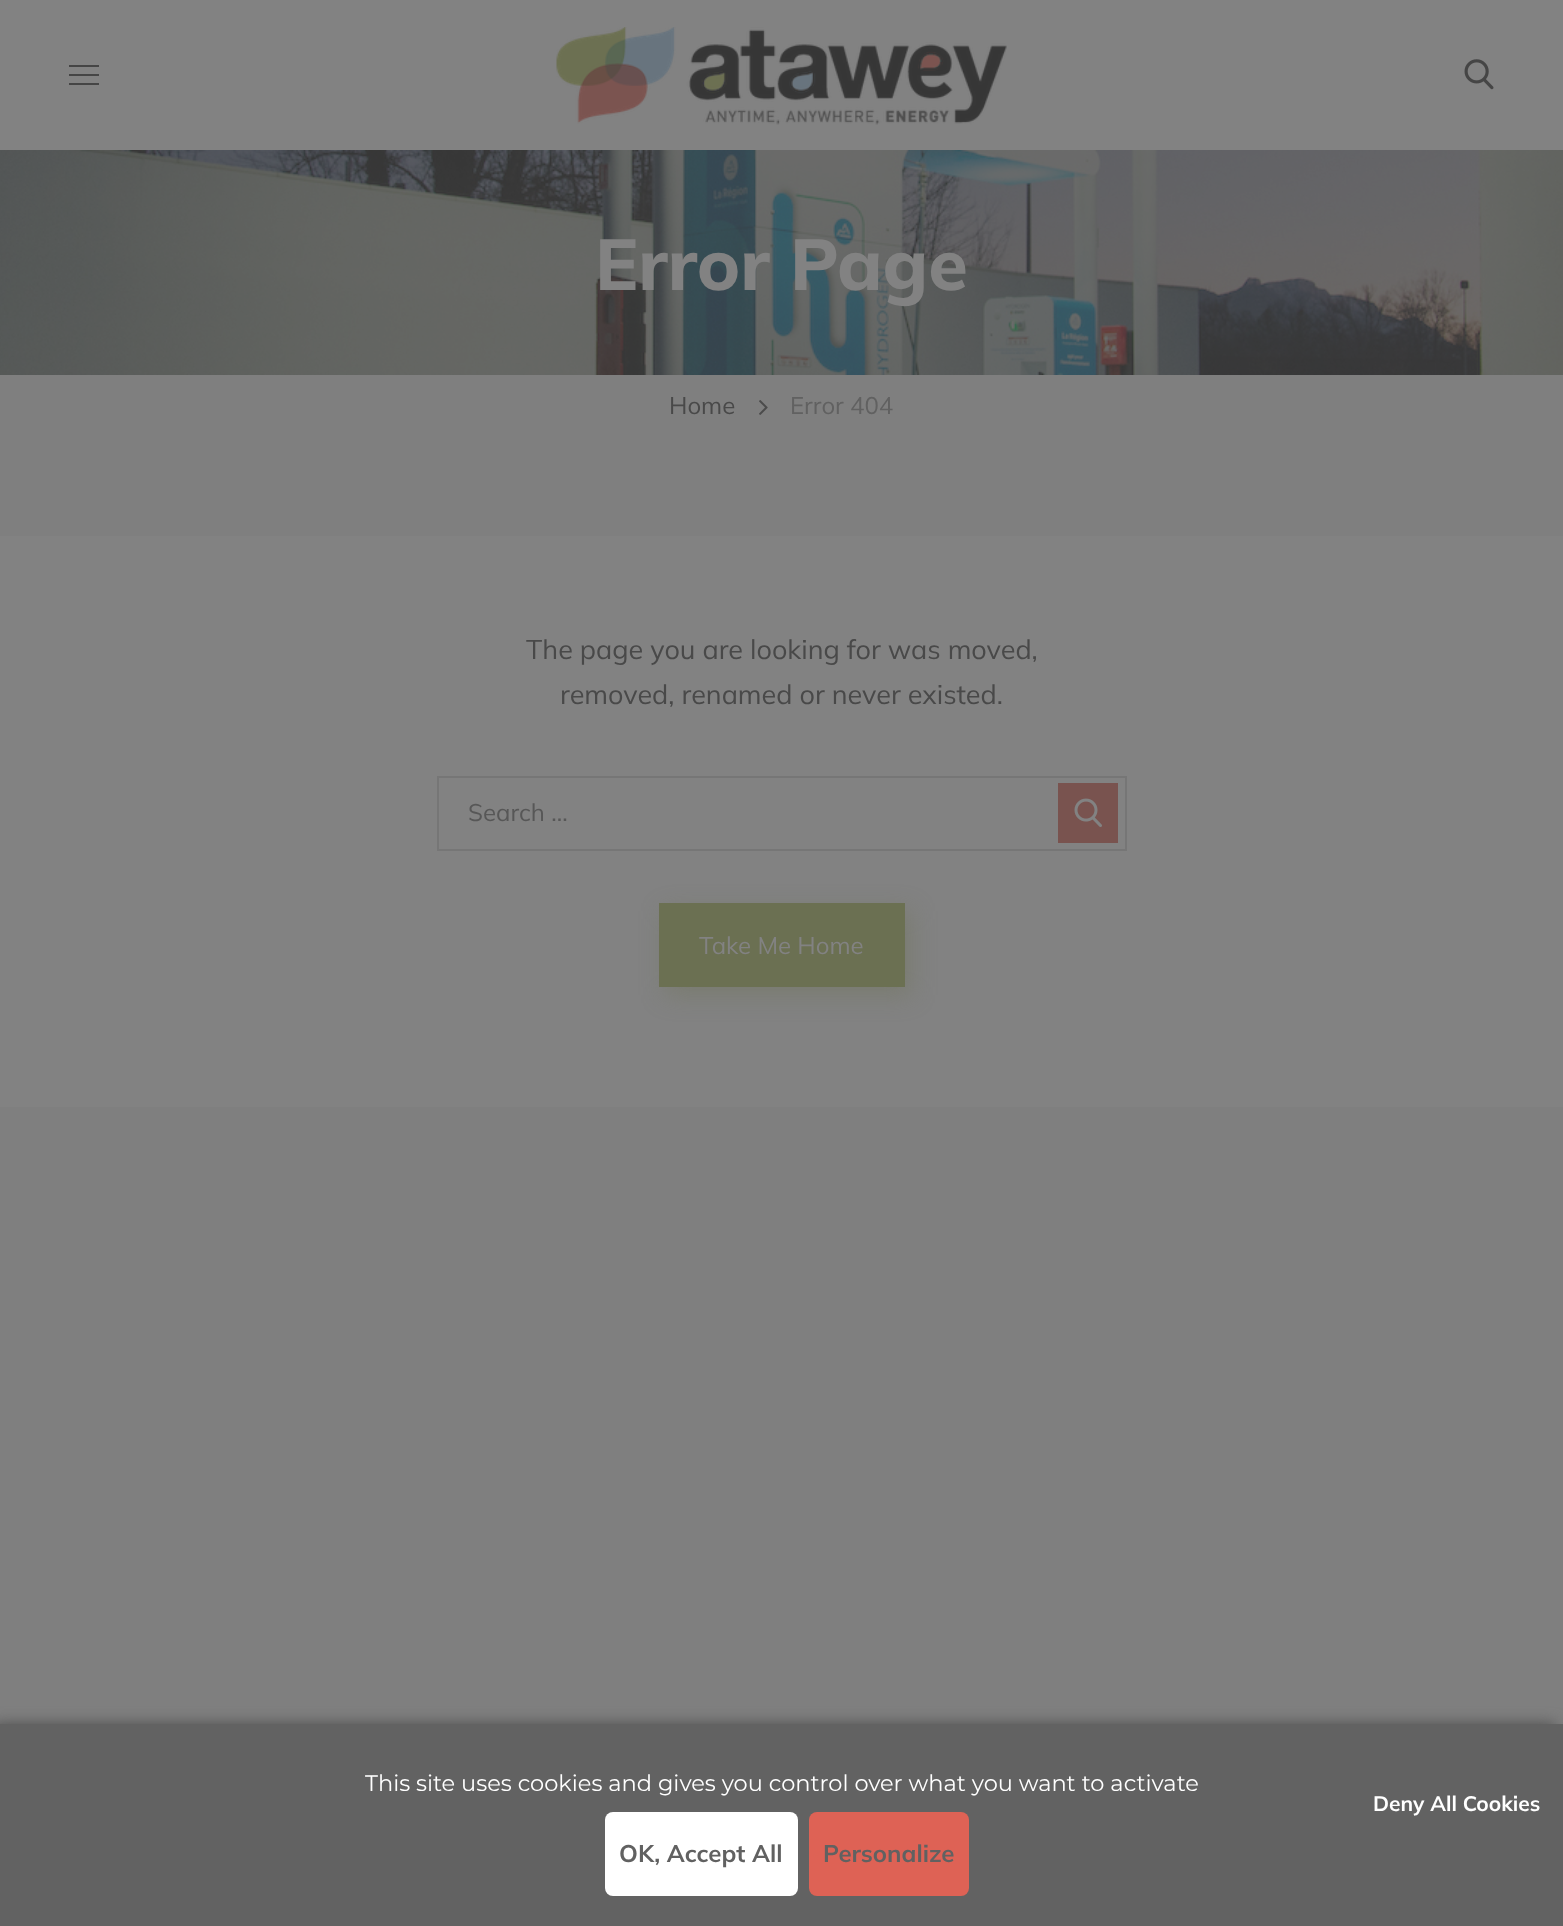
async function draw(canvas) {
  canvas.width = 1563
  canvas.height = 1926
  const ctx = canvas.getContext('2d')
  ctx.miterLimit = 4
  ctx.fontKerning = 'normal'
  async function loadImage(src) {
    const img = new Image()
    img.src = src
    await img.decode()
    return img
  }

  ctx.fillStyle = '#7f7f7f'
  ctx.fillRect(0, 0, 1563, 1926)
  ctx.fillStyle = '#828282'
  ctx.fillRect(0, 0, 1563, 150)
  ctx.fillStyle = '#454545'
  ctx.fillRect(69, 65, 30, 2)
  ctx.fillRect(69, 74, 30, 2)
  ctx.fillRect(69, 83, 30, 2)
  ctx.drawImage(await loadImage('image0.png'), 556, 27, 451, 98)
  ctx.drawImage(await loadImage('image1.png'), 1464, 59, 30, 31)
  ctx.drawImage(await loadImage('image2.png'), 0, 150, 1563, 225)
  ctx.font = '800 72px Mulish'
  ctx.fillStyle = '#828282'
  ctx.fillText('Error Page', 595, 290)
  ctx.font = '24px Mulish'
  ctx.fillStyle = '#494949'
  ctx.fillText('Home', 669, 414)
  ctx.drawImage(await loadImage('image3.png'), 759, 400, 9, 15)
  ctx.fillStyle = '#616161'
  ctx.fillText('Error 404', 790, 414)
  ctx.fillStyle = '#828282'
  ctx.fillRect(0, 536, 1563, 571)
  ctx.font = '27px Mulish'
  ctx.fillStyle = '#494949'
  ctx.fillText('The page you are looking for was moved,', 526, 659)
  ctx.fillText('removed, renamed or never existed.', 560, 704)
  ctx.strokeStyle = '#767676'
  ctx.lineWidth = 2
  ctx.strokeRect(438, 777, 688, 73)
  ctx.font = '24px Mulish'
  ctx.fillStyle = '#575757'
  ctx.fillText('Search …', 468, 821)
  ctx.fillStyle = '#79534f'
  ctx.fillRect(1058, 783, 60, 60)
  ctx.drawImage(await loadImage('image4.png'), 1074, 798, 28, 29)
  ctx.fillStyle = '#6b705266'
  ctx.filter = 'blur(12px)'
  ctx.beginPath()
  ctx.rect(665, 911, 246, 84)
  ctx.fill()
  ctx.filter = 'none'
  ctx.fillStyle = '#6b7052'
  ctx.fillRect(659, 903, 246, 84)
  ctx.fillStyle = '#828282'
  ctx.fillText('Take Me Home', 699, 954)
  ctx.fillStyle = '#4e4e4e'
  ctx.filter = 'blur(7.5px)'
  ctx.beginPath()
  ctx.rect(-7, 1724, 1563, 202)
  ctx.fill()
  ctx.filter = 'none'
  ctx.fillStyle = '#626262'
  ctx.fillRect(0, 1724, 1563, 202)
  ctx.font = '22.5px Montserrat'
  ctx.fillStyle = '#fff'
  ctx.fillText('This site uses cookies and gives you control over what you want to activate', 365, 1791)
  ctx.font = 'bold 21px Mulish'
  ctx.fillText('Deny All Cookies', 1373, 1811)
  ctx.beginPath()
  ctx.roundRect(605, 1812, 193, 84, 8)
  ctx.fill()
  ctx.font = 'bold 24px Mulish'
  ctx.fillStyle = '#616161'
  ctx.fillText('OK, Accept All', 619, 1862)
  ctx.fillStyle = '#de6255'
  ctx.beginPath()
  ctx.roundRect(809, 1812, 160, 84, 8)
  ctx.fill()
  ctx.fillStyle = '#616161'
  ctx.fillText('Personalize', 823, 1862)
}

draw(document.querySelector('canvas'))
